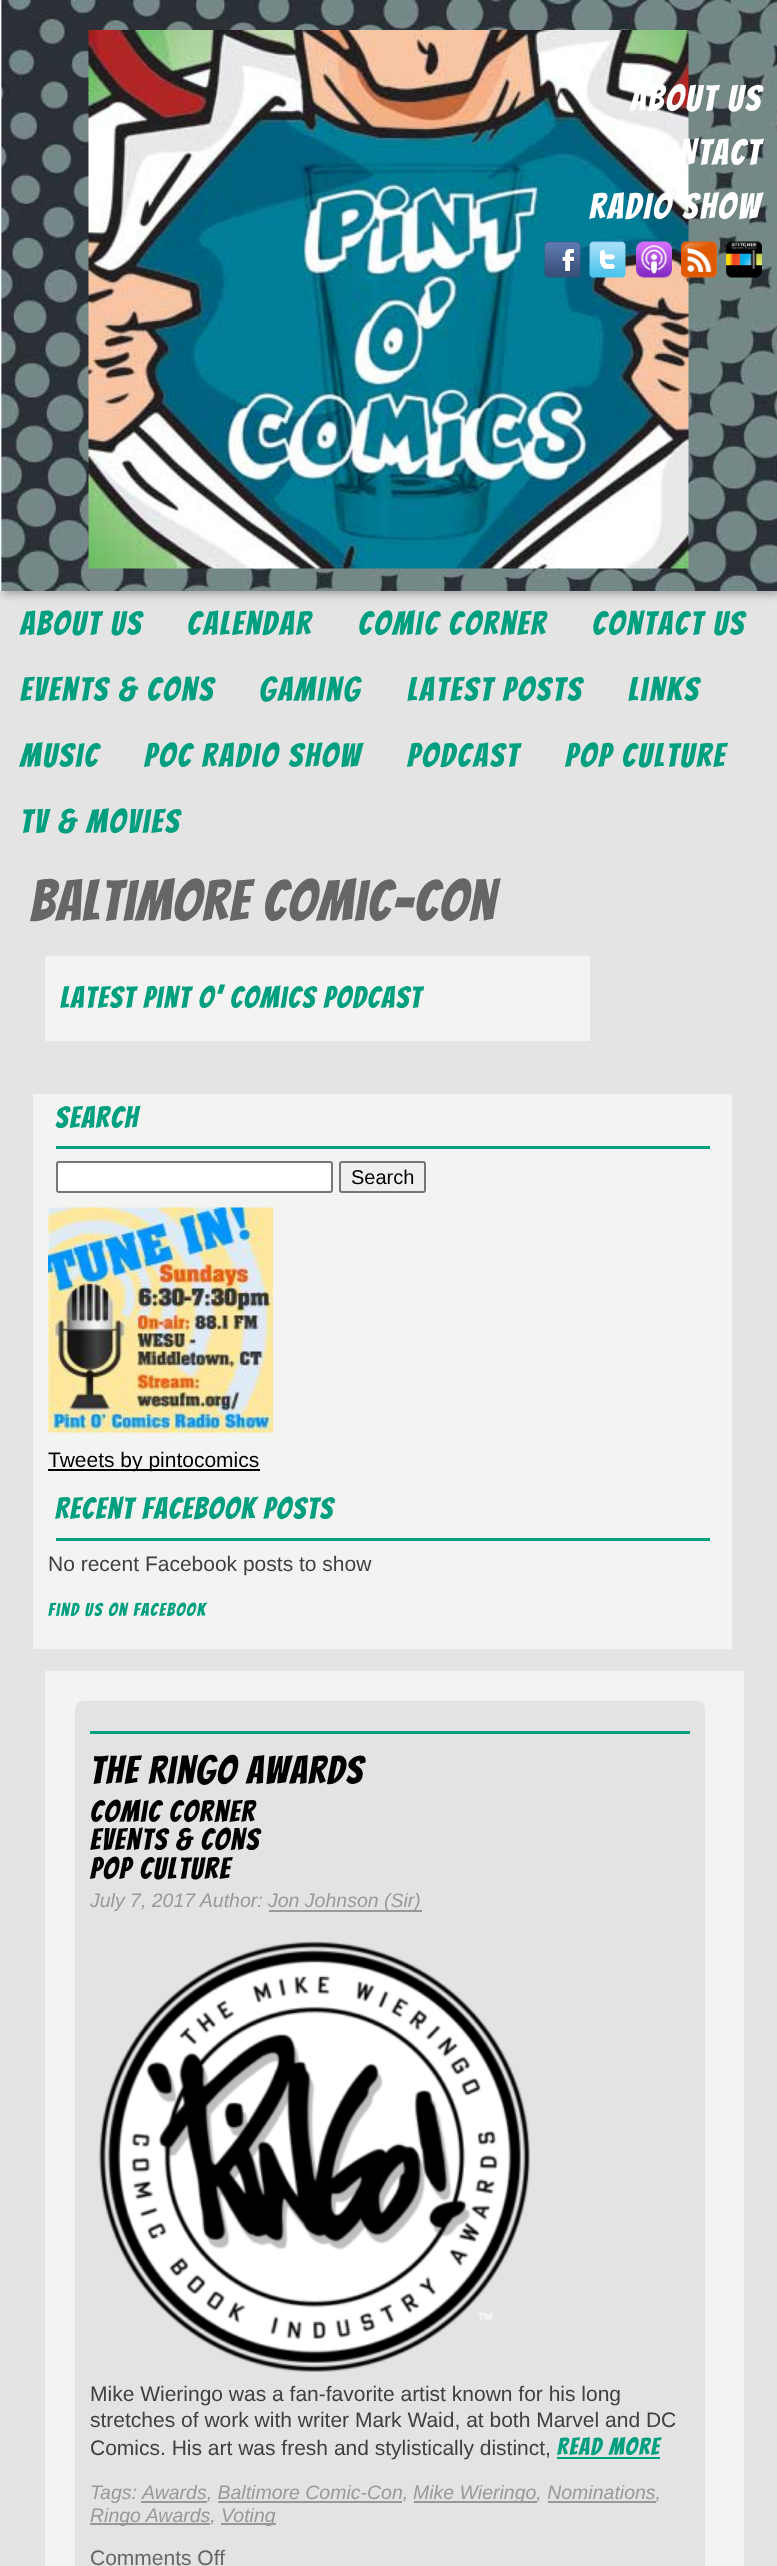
async function draw(canvas) {
  canvas.width = 777
  canvas.height = 2566
  const ctx = canvas.getContext('2d')
  ctx.miterLimit = 4
  ctx.fontKerning = 'normal'
  async function loadImage(src) {
    const img = new Image()
    img.src = src
    await img.decode()
    return img
  }

  ctx.fillStyle = '#e4e4e4'
  ctx.fillRect(0, 0, 777, 2566)
  ctx.fillStyle = '#0000004d'
  ctx.filter = 'blur(4.5px)'
  ctx.beginPath()
  ctx.rect(3, 3, 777, 591)
  ctx.fill()
  ctx.filter = 'none'
  ctx.drawImage(await loadImage('image0.png'), 0, 0, 777, 591)
  ctx.drawImage(await loadImage('image1.png'), 88, 30, 601, 539)
  ctx.letterSpacing = '2.25px'
  ctx.font = '36px Bangers'
  ctx.fillStyle = '#fff'
  ctx.fillText('ABOUT US', 630, 111)
  ctx.fillText('NTACT', 679, 165)
  ctx.fillText('RADIO SHOW', 589, 219)
  ctx.drawImage(await loadImage('image2.png'), 544, 241, 37, 37)
  ctx.drawImage(await loadImage('image3.png'), 589, 241, 37, 37)
  ctx.drawImage(await loadImage('image4.png'), 636, 241, 36, 37)
  ctx.drawImage(await loadImage('image5.png'), 681, 241, 36, 37)
  ctx.drawImage(await loadImage('image6.png'), 726, 241, 36, 37)
  ctx.font = '33px Bangers'
  ctx.fillStyle = '#009f7f'
  ctx.fillText('About Us', 20, 635)
  ctx.fillText('Calendar', 187, 635)
  ctx.fillText('Comic Corner', 358, 635)
  ctx.fillText('Contact Us', 592, 635)
  ctx.fillText('Events & Cons', 20, 701)
  ctx.fillText('Gaming', 259, 701)
  ctx.fillText('Latest Posts', 407, 701)
  ctx.fillText('Links', 628, 701)
  ctx.fillText('Music', 20, 767)
  ctx.fillText('POC Radio Show', 144, 767)
  ctx.fillText('Podcast', 407, 767)
  ctx.fillText('Pop Culture', 565, 767)
  ctx.fillText('TV & Movies', 20, 833)
  ctx.letterSpacing = '1.5px'
  ctx.font = '57px Bangers'
  ctx.fillStyle = '#666'
  ctx.fillText('Baltimore Comic-Con', 30, 921)
  ctx.fillStyle = '#f3f4f1'
  ctx.fillRect(45, 956, 545, 85)
  ctx.font = '30px Bangers'
  ctx.fillStyle = '#009f7f'
  ctx.fillText('Latest Pint O’ Comics Podcast', 60, 1008)
  ctx.fillStyle = '#f3f4f1'
  ctx.fillRect(33, 1094, 699, 555)
  ctx.fillStyle = '#009f7f'
  ctx.fillRect(56, 1146, 654, 3)
  ctx.fillText('Search', 55, 1128)
  ctx.fillStyle = '#fff'
  ctx.beginPath()
  ctx.roundRect(57, 1162, 275, 30, 2)
  ctx.fill()
  ctx.strokeStyle = '#767676'
  ctx.lineWidth = 2
  ctx.stroke()
  ctx.fillStyle = '#efefef'
  ctx.beginPath()
  ctx.roundRect(340, 1162, 85, 30, 2)
  ctx.fill()
  ctx.stroke()
  ctx.letterSpacing = '0px'
  ctx.font = '20px Liberation Sans'
  ctx.fillStyle = '#000'
  ctx.fillText('Search', 351, 1184)
  ctx.drawImage(await loadImage('image7.png'), 48, 1207, 225, 226)
  ctx.fillRect(48, 1469, 212, 2)
  ctx.font = '21px Liberation Sans'
  ctx.fillText('Tweets by pintocomics', 48, 1467)
  ctx.fillStyle = '#009f7f'
  ctx.fillRect(56, 1538, 654, 3)
  ctx.letterSpacing = '1.5px'
  ctx.font = '30px Bangers'
  ctx.fillText('Recent Facebook Posts', 55, 1519)
  ctx.letterSpacing = '0px'
  ctx.font = '21px Liberation Sans'
  ctx.fillStyle = '#404040'
  ctx.fillText('No recent Facebook posts to show', 48, 1571)
  ctx.letterSpacing = '1.5px'
  ctx.font = '18px Bangers'
  ctx.fillStyle = '#009f7f'
  ctx.fillText('Find us on Facebook', 48, 1616)
  ctx.fillStyle = '#f3f4f1'
  ctx.fillRect(45, 1671, 699, 895)
  ctx.fillStyle = '#e3e3e3'
  ctx.beginPath()
  ctx.roundRect(75, 1701, 630, 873, 8)
  ctx.fill()
  ctx.fillStyle = '#009f7f'
  ctx.fillRect(90, 1731, 600, 3)
  ctx.font = '39px Bangers'
  ctx.fillStyle = '#000'
  ctx.fillText('The Ringo Awards', 90, 1784)
  ctx.font = '30px Bangers'
  ctx.fillText('Comic Corner', 90, 1822)
  ctx.fillText('Events & Cons', 90, 1850)
  ctx.fillText('Pop Culture', 90, 1879)
  ctx.letterSpacing = '0px'
  ctx.font = 'italic 19.5px Liberation Sans'
  ctx.fillStyle = '#999'
  ctx.fillText('July 7, 2017 Author:', 90, 1907)
  ctx.fillRect(269, 1910, 153, 2)
  ctx.fillText('Jon Johnson (Sir)', 268, 1907)
  ctx.drawImage(await loadImage('image8.png'), 98, 1941, 432, 431)
  ctx.font = '21px Liberation Sans'
  ctx.fillStyle = '#404040'
  ctx.fillText('Mike Wieringo was a fan-favorite artist known for his long', 90, 2401)
  ctx.fillText('stretches of work with writer Mark Waid, at both Marvel and DC', 90, 2427)
  ctx.fillText('Comics. His art was fresh and stylistically distinct,', 90, 2455)
  ctx.letterSpacing = '1.5px'
  ctx.font = '24px Bangers'
  ctx.fillStyle = '#009f7f'
  ctx.fillText('Read More', 557, 2455)
  ctx.fillRect(557, 2457, 103, 2)
  ctx.letterSpacing = '0px'
  ctx.font = 'italic 19.5px Liberation Sans'
  ctx.fillStyle = '#999'
  ctx.fillText('Tags:', 90, 2499)
  ctx.fillRect(141, 2501, 66, 2)
  ctx.fillText('Awards, Baltimore Comic-Con,', 142, 2499)
  ctx.fillRect(414, 2501, 123, 2)
  ctx.fillText('Mike Wieringo, Nominations,', 413, 2499)
  ctx.fillRect(218, 2501, 184, 2)
  ctx.fillRect(548, 2501, 108, 2)
  ctx.fillRect(90, 2523, 120, 2)
  ctx.fillText('Ringo Awards,', 90, 2522)
  ctx.fillRect(221, 2523, 55, 2)
  ctx.fillText('Voting', 221, 2522)
  ctx.font = '21px Liberation Sans'
  ctx.fillStyle = '#666'
  ctx.fillText('Comments Off', 90, 2565)
}

draw(document.querySelector('canvas'))
